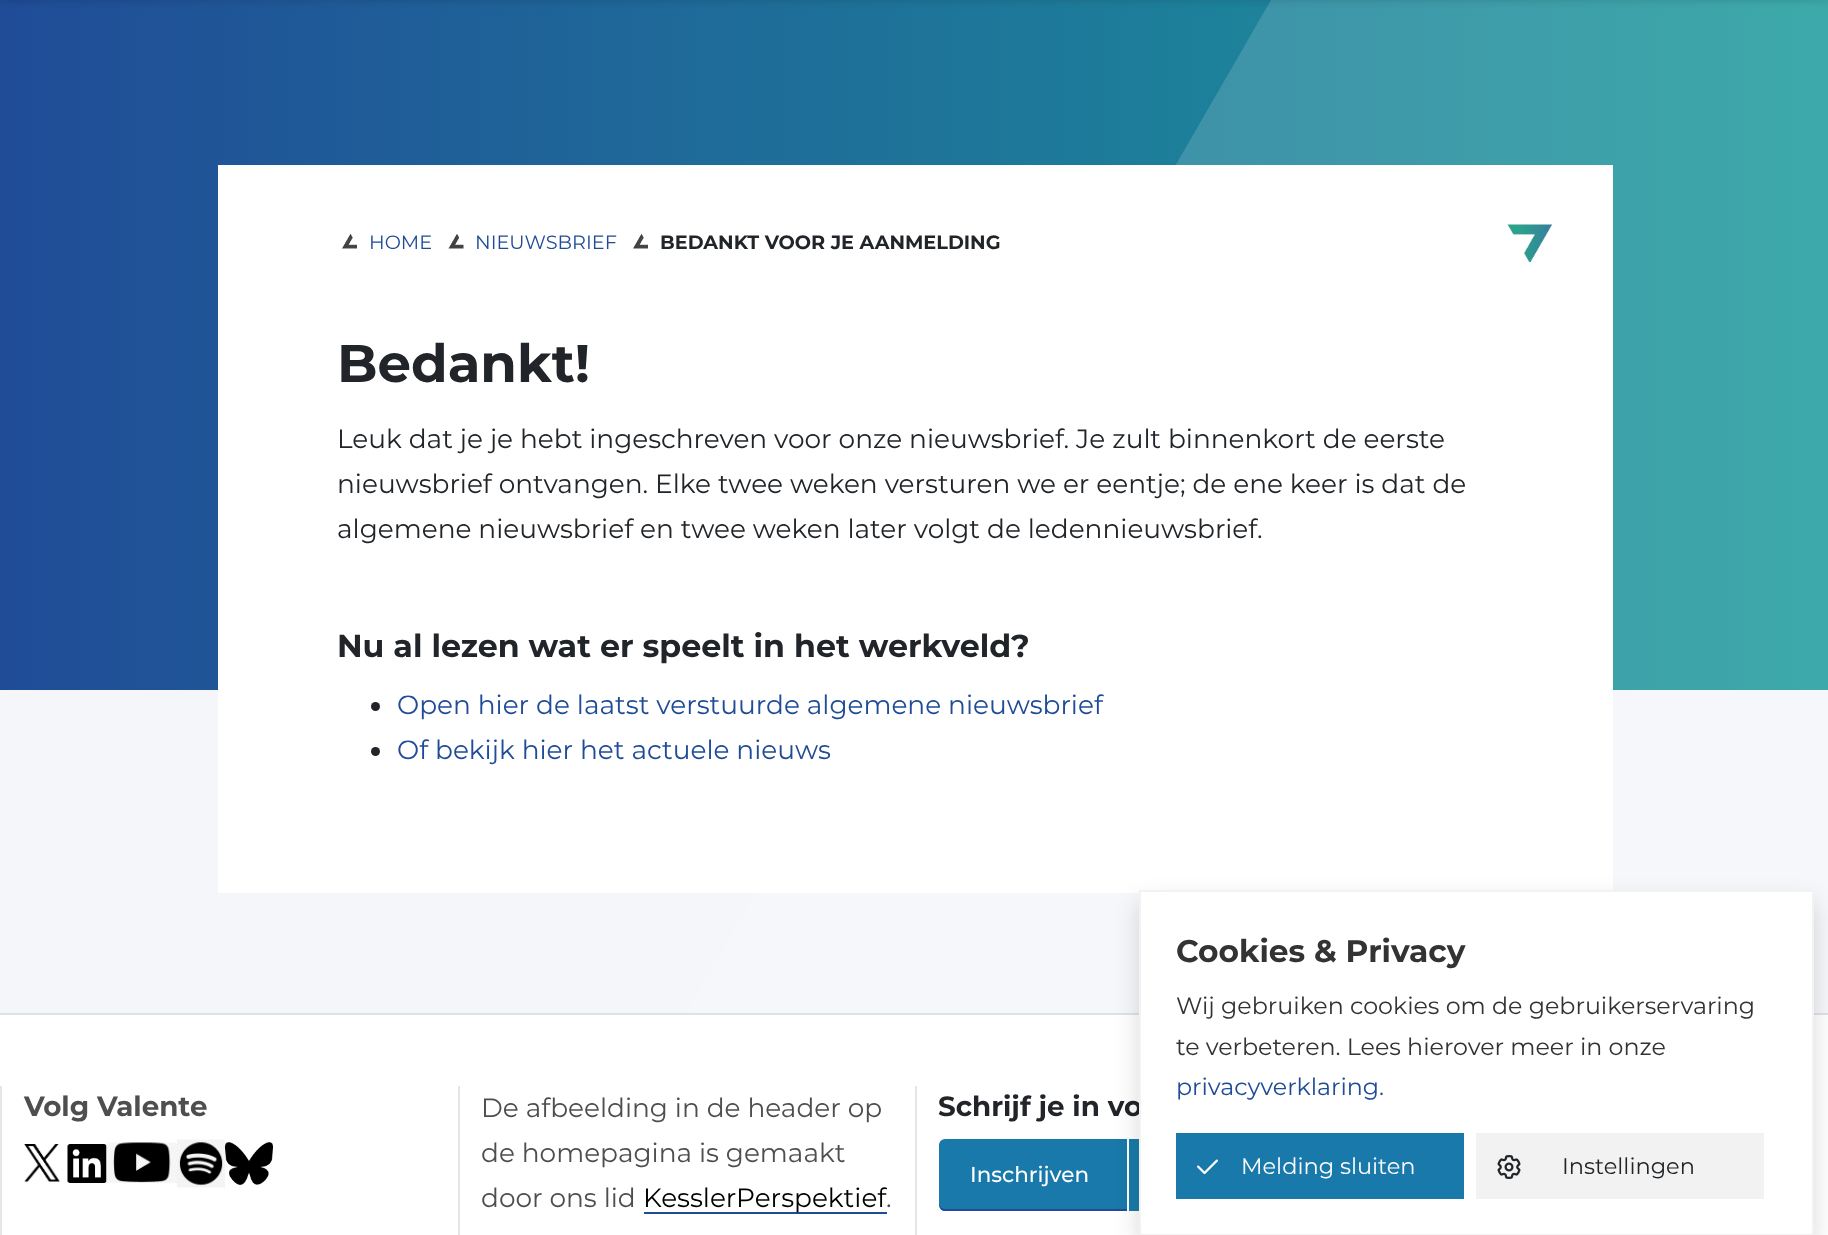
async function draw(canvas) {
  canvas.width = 1828
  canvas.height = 1235
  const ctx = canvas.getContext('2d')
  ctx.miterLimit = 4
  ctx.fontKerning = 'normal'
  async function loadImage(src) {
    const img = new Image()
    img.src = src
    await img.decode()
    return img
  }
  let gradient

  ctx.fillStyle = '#f5f6fa'
  ctx.fillRect(0, 0, 1828, 1235)
  gradient = ctx.createLinearGradient(0, 315, 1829, 315)
  gradient.addColorStop(0, '#204c97')
  gradient.addColorStop(1, '#1c9b9c')
  ctx.fillStyle = gradient
  ctx.fillRect(0, 0, 1828, 690)
  ctx.fillStyle = '#ffffff26'
  ctx.beginPath()
  ctx.moveTo(1271, 0)
  ctx.lineTo(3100, 0)
  ctx.lineTo(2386, 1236)
  ctx.lineTo(557, 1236)
  ctx.closePath()
  ctx.fill()
  ctx.fillStyle = '#00000026'
  ctx.filter = 'blur(4px)'
  ctx.beginPath()
  ctx.rect(0, -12, 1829, 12)
  ctx.fill()
  ctx.filter = 'none'
  ctx.fillStyle = '#fff'
  ctx.fillRect(218, 165, 1395, 728)
  ctx.drawImage(await loadImage('image0.png'), 342, 233, 15, 16)
  ctx.font = '19.25px Montserrat'
  ctx.fillStyle = '#204c97'
  ctx.fillText('HOME', 369, 249)
  ctx.drawImage(await loadImage('image1.png'), 448, 234, 16, 15)
  ctx.fillText('NIEUWSBRIEF', 475, 249)
  ctx.drawImage(await loadImage('image0.png'), 633, 233, 15, 16)
  ctx.font = 'bold 19.25px Montserrat'
  ctx.fillStyle = '#212529'
  ctx.fillText('BEDANKT VOOR JE AANMELDING', 660, 249)
  ctx.drawImage(await loadImage('image2.png'), 1507, 224, 46, 38)
  ctx.font = 'bold 53px Montserrat'
  ctx.fillText('Bedankt!', 337, 382)
  ctx.font = '26.4px Montserrat'
  ctx.fillText('Leuk dat je je hebt ingeschreven voor onze nieuwsbrief. Je zult binnenkort de eerste', 337, 448)
  ctx.fillText('nieuwsbrief ontvangen. Elke twee weken versturen we er eentje; de ene keer is dat de', 337, 493)
  ctx.fillText('algemene nieuwsbrief en twee weken later volgt de ledennieuwsbrief.', 337, 538)
  ctx.font = 'bold 31.7px Montserrat'
  ctx.fillText('Nu al lezen wat er speelt in het werkveld?', 337, 657)
  ctx.beginPath()
  ctx.arc(375.5, 706.5, 4.5, 0, 2 * Math.PI)
  ctx.fill()
  ctx.font = '26.4px Montserrat'
  ctx.fillStyle = '#204c97'
  ctx.fillText('Open hier de laatst verstuurde algemene nieuwsbrief', 397, 714)
  ctx.fillStyle = '#212529'
  ctx.beginPath()
  ctx.arc(375.5, 751.5, 4.5, 0, 2 * Math.PI)
  ctx.fill()
  ctx.fillStyle = '#204c97'
  ctx.fillText('Of bekijk hier het actuele nieuws', 397, 759)
  ctx.fillStyle = '#fff'
  ctx.fillRect(0, 1015, 1828, 220)
  ctx.fillStyle = '#dee2e6'
  ctx.fillRect(0, 1013, 1828, 2)
  ctx.fillStyle = '#e5e5e5'
  ctx.fillRect(0, 1086, 2, 149)
  ctx.font = 'bold 27.75px Montserrat'
  ctx.fillStyle = '#4e4e4e'
  ctx.fillText('Volg Valente', 24, 1116)
  ctx.drawImage(await loadImage('image3.png'), 24, 1144, 36, 38)
  ctx.drawImage(await loadImage('image4.png'), 67, 1144, 40, 39)
  ctx.drawImage(await loadImage('image5.png'), 106, 1142, 71, 41)
  ctx.drawImage(await loadImage('image6.png'), 177, 1139, 48, 49)
  ctx.drawImage(await loadImage('image7.png'), 225, 1142, 48, 43)
  ctx.fillStyle = '#e5e5e5'
  ctx.fillRect(458, 1086, 2, 149)
  ctx.font = '26.4px Montserrat'
  ctx.fillStyle = '#4e4e4e'
  ctx.fillText('De afbeelding in de header op', 481, 1117)
  ctx.fillText('de homepagina is gemaakt', 481, 1162)
  ctx.fillText('door ons lid', 481, 1207)
  ctx.fillStyle = '#204c97'
  ctx.fillRect(644, 1212, 243, 2)
  ctx.fillStyle = '#000'
  ctx.fillText('KesslerPerspektief', 643, 1207)
  ctx.fillStyle = '#4e4e4e'
  ctx.fillText('.', 886, 1207)
  ctx.fillStyle = '#e5e5e5'
  ctx.fillRect(915, 1086, 2, 149)
  ctx.font = 'bold 27.75px Montserrat'
  ctx.fillStyle = '#212529'
  ctx.fillText('Schrijf je in vo', 938, 1116)
  ctx.fillStyle = '#1879aa'
  ctx.beginPath()
  ctx.roundRect(939, 1139, 263, 72, 6)
  ctx.fill()
  ctx.fillStyle = '#204c97'
  ctx.beginPath()
  ctx.moveTo(939, 1203)
  ctx.bezierCurveTo(939, 1206, 940, 1210, 944, 1211)
  ctx.lineTo(1197, 1211)
  ctx.bezierCurveTo(1201, 1210, 1202, 1206, 1202, 1203)
  ctx.bezierCurveTo(1202, 1206, 1199, 1209, 1196, 1209)
  ctx.lineTo(945, 1209)
  ctx.bezierCurveTo(942, 1209, 939, 1206, 939, 1203)
  ctx.closePath()
  ctx.fill()
  ctx.font = '500 21.5px Montserrat'
  ctx.fillStyle = '#fff'
  ctx.fillText('Inschrijven', 970, 1182)
  gradient = ctx.createLinearGradient(1202, 1175, 1128, 1175)
  gradient.addColorStop(0, '#1c9b9d')
  gradient.addColorStop(1, '#1879aa')
  ctx.fillStyle = gradient
  ctx.fillRect(1129, 1139, 10, 72)
  ctx.fillStyle = '#fff'
  ctx.fillRect(1127, 1139, 2, 72)
  ctx.fillStyle = '#00000026'
  ctx.filter = 'blur(12px)'
  ctx.beginPath()
  ctx.rect(1139, 902, 675, 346)
  ctx.fill()
  ctx.filter = 'none'
  ctx.fillStyle = '#fff'
  ctx.beginPath()
  ctx.rect(1140, 891, 673, 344)
  ctx.fill()
  ctx.strokeStyle = '#f2f2f2'
  ctx.lineWidth = 2
  ctx.stroke()
  ctx.font = 'bold 31.25px Montserrat'
  ctx.fillStyle = '#333'
  ctx.fillText('Cookies & Privacy', 1176, 962)
  ctx.font = '23.75px Montserrat'
  ctx.fillText('Wij gebruiken cookies om de gebruikerservaring', 1176, 1014)
  ctx.fillText('te verbeteren. Lees hierover meer in onze', 1176, 1055)
  ctx.fillStyle = '#204c97'
  ctx.fillText('privacyverklaring.', 1176, 1095)
  ctx.fillStyle = '#1879aa'
  ctx.fillRect(1176, 1133, 288, 66)
  ctx.drawImage(await loadImage('image8.png'), 1197, 1159, 21, 16)
  ctx.font = '22.5px Montserrat'
  ctx.fillStyle = '#fff'
  ctx.fillText('Melding sluiten', 1241, 1174)
  ctx.fillStyle = '#f2f2f2'
  ctx.fillRect(1476, 1133, 288, 66)
  ctx.drawImage(await loadImage('image9.png'), 1497, 1155, 24, 24)
  ctx.fillStyle = '#212529'
  ctx.fillText('Instellingen', 1562, 1174)
}

draw(document.querySelector('canvas'))
